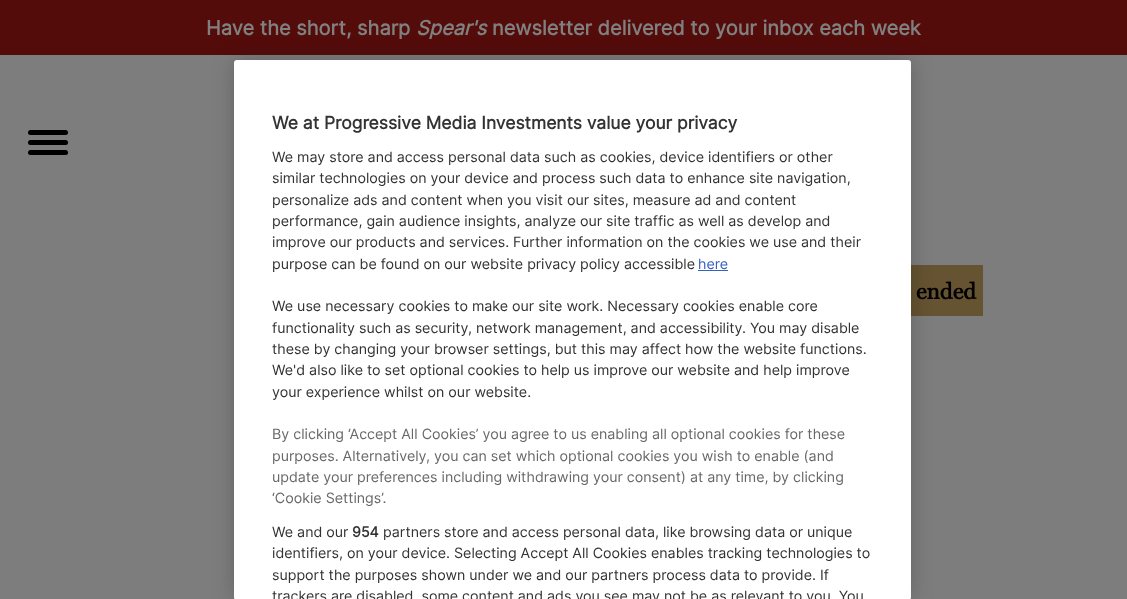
async function draw(canvas) {
  canvas.width = 1127
  canvas.height = 599
  const ctx = canvas.getContext('2d')
  ctx.miterLimit = 4
  ctx.fontKerning = 'normal'

  ctx.fillStyle = '#540c0b'
  ctx.fillRect(0, 0, 1127, 599)
  ctx.font = 'bold 20px Inter'
  ctx.fillStyle = '#808080'
  ctx.fillText('Have the short, sharp', 206, 35)
  ctx.font = 'italic bold 20px Inter'
  ctx.fillText('Spear\'s', 416, 35)
  ctx.font = 'bold 20px Inter'
  ctx.fillText('newsletter delivered to your inbox each week', 492, 35)
  ctx.fillStyle = '#7d7d7d'
  ctx.fillRect(0, 55, 1127, 544)
  ctx.fillStyle = '#000'
  ctx.beginPath()
  ctx.roundRect(28, 130, 40, 5, 2.5)
  ctx.fill()
  ctx.beginPath()
  ctx.roundRect(28, 140, 40, 5, 2.5)
  ctx.fill()
  ctx.beginPath()
  ctx.roundRect(28, 150, 40, 5, 2.5)
  ctx.fill()
  ctx.fillStyle = '#655331'
  ctx.fillRect(911, 265, 72, 51)
  ctx.fillStyle = '#00000033'
  ctx.filter = 'blur(11px)'
  ctx.beginPath()
  ctx.roundRect(234, 60, 677, 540, 3)
  ctx.fill()
  ctx.filter = 'none'
  ctx.fillStyle = '#fff'
  ctx.beginPath()
  ctx.roundRect(234, 60, 677, 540, 3)
  ctx.fill()
  ctx.font = 'bold 17.5px Inter'
  ctx.fillStyle = '#333'
  ctx.fillText('We at Progressive Media Investments value your privacy', 272, 129)
  ctx.font = '14.25px Inter'
  ctx.fillText('We may store and access personal data such as cookies, device identifiers or other', 272, 162)
  ctx.fillText('similar technologies on your device and process such data to enhance site navigation,', 272, 183)
  ctx.fillText('personalize ads and content when you visit our sites, measure ad and content', 272, 205)
  ctx.fillText('performance, gain audience insights, analyze our site traffic as well as develop and', 272, 226)
  ctx.fillText('improve our products and services. Further information on the cookies we use and their', 272, 247)
  ctx.fillText('purpose can be found on our website privacy policy accessible', 272, 269)
  ctx.fillStyle = '#3860be'
  ctx.fillText('here', 698, 269)
  ctx.fillRect(698, 270, 30, 1)
  ctx.fillStyle = '#333'
  ctx.fillText('We use necessary cookies to make our site work. Necessary cookies enable core', 272, 311)
  ctx.fillText('functionality such as security, network management, and accessibility. You may disable', 272, 333)
  ctx.fillText('these by changing your browser settings, but this may affect how the website functions.', 272, 354)
  ctx.fillText('We\'d also like to set optional cookies to help us improve our website and help improve', 272, 375)
  ctx.fillText('your experience whilst on our website.', 272, 397)
  ctx.fillStyle = '#696969'
  ctx.fillText('By clicking ‘Accept All Cookies’ you agree to us enabling all optional cookies for these', 272, 439)
  ctx.fillText('purposes. Alternatively, you can set which optional cookies you wish to enable (and', 272, 461)
  ctx.fillText('update your preferences including withdrawing your consent) at any time, by clicking', 272, 482)
  ctx.fillText('‘Cookie Settings’.', 272, 503)
  ctx.fillStyle = '#333'
  ctx.fillText('We and our', 272, 537)
  ctx.font = 'bold 14.25px Inter'
  ctx.fillText('954', 352, 537)
  ctx.font = '14.25px Inter'
  ctx.fillText('partners store and access personal data, like browsing data or unique', 383, 537)
  ctx.fillText('identifiers, on your device. Selecting Accept All Cookies enables tracking technologies to', 272, 558)
  ctx.fillText('support the purposes shown under we and our partners process data to provide. If', 272, 580)
  ctx.fillText('trackers are disabled, some content and ads you see may not be as relevant to you. You', 272, 601)
  ctx.font = 'bold 22.5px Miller'
  ctx.fillStyle = '#000'
  ctx.fillText('ended', 916, 299)
}

draw(document.querySelector('canvas'))
